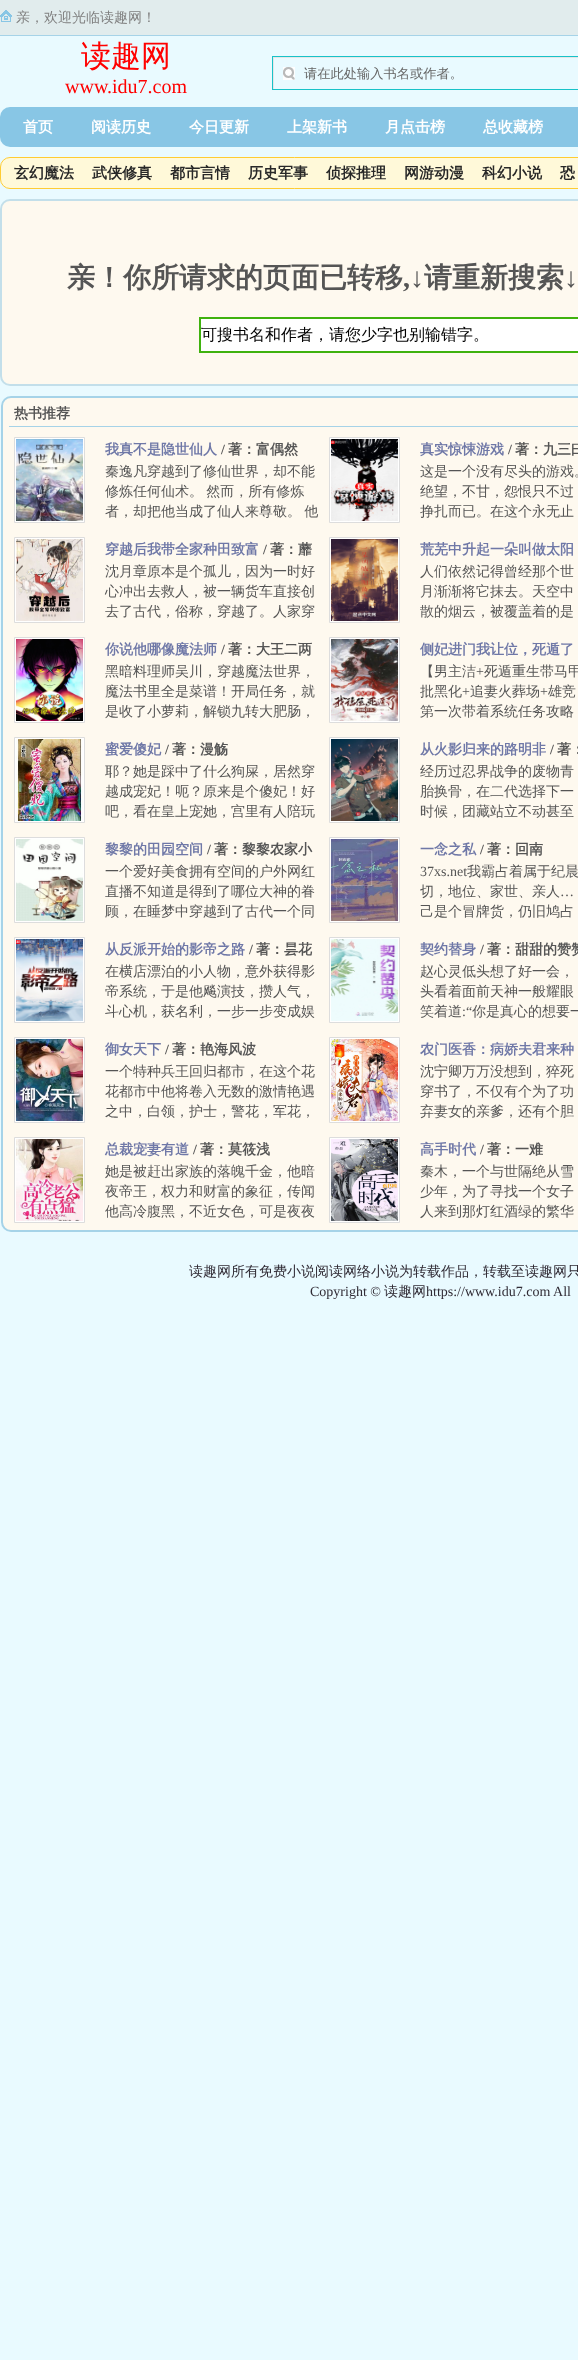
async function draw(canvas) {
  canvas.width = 578
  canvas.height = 2360
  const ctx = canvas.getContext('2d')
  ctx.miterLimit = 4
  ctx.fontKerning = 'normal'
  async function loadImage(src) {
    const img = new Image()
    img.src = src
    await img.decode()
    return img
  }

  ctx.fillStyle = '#e9faff'
  ctx.fillRect(0, 0, 578, 2360)
  ctx.fillStyle = '#e1eced'
  ctx.fillRect(0, 0, 578, 35)
  ctx.fillStyle = '#a6d3e8'
  ctx.fillRect(0, 35, 578, 1)
  ctx.drawImage(await loadImage('image0.png'), 0, 10, 12, 12)
  ctx.font = '500 14px WenQuanYi Zen Hei'
  ctx.fillStyle = '#808080'
  ctx.fillText('亲，欢迎光临读趣网！', 16, 22)
  ctx.font = '500 30px WenQuanYi Zen Hei'
  ctx.fillStyle = '#f00'
  ctx.fillText('读趣网', 81, 66)
  ctx.font = '20px Liberation Serif'
  ctx.fillText('www.idu7.com', 65, 93)
  ctx.strokeStyle = '#18c2c8'
  ctx.strokeRect(272.5, 56.5, 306, 33)
  ctx.drawImage(await loadImage('image1.png'), 283, 67, 12, 13)
  ctx.fillStyle = '#e6e6e6'
  ctx.fillRect(273, 57, 305, 1)
  ctx.fillRect(273, 57, 1, 32)
  ctx.font = '500 13.25px WenQuanYi Zen Hei'
  ctx.fillStyle = '#666'
  ctx.fillText('请在此处输入书名或作者。', 304, 78)
  ctx.fillStyle = '#88c6e5'
  ctx.beginPath()
  ctx.roundRect(0, 107, 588, 40, 10)
  ctx.fill()
  ctx.font = 'bold 15px WenQuanYi Zen Hei'
  ctx.fillStyle = '#fff'
  ctx.fillText('首页', 23, 132)
  ctx.fillText('阅读历史', 91, 132)
  ctx.fillText('今日更新', 189, 132)
  ctx.fillText('上架新书', 287, 132)
  ctx.fillText('月点击榜', 385, 132)
  ctx.fillText('总收藏榜', 483, 132)
  ctx.fillStyle = '#fff9d9'
  ctx.beginPath()
  ctx.roundRect(0.5, 157.5, 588, 31, 9.5)
  ctx.fill()
  ctx.strokeStyle = '#fc3'
  ctx.stroke()
  ctx.fillStyle = '#282828'
  ctx.fillText('玄幻魔法', 14, 178)
  ctx.fillText('武侠修真', 92, 178)
  ctx.fillText('都市言情', 170, 178)
  ctx.fillText('历史军事', 248, 178)
  ctx.fillText('侦探推理', 326, 178)
  ctx.fillText('网游动漫', 404, 178)
  ctx.fillText('科幻小说', 482, 178)
  ctx.fillText('恐', 560, 178)
  ctx.fillStyle = '#fef9ef'
  ctx.beginPath()
  ctx.roundRect(1, 200, 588, 185, 9)
  ctx.fill()
  ctx.strokeStyle = '#c3dfea'
  ctx.lineWidth = 2
  ctx.stroke()
  ctx.font = 'bold 28px WenQuanYi Zen Hei'
  ctx.fillStyle = '#555'
  ctx.fillText('亲！你所请求的页面已转移', 67, 287)
  ctx.font = 'bold 28px Liberation Serif'
  ctx.fillText(',↓', 403, 287)
  ctx.font = 'bold 28px WenQuanYi Zen Hei'
  ctx.fillText('请重新搜索', 424, 287)
  ctx.font = 'bold 28px Liberation Serif'
  ctx.fillText('↓', 564, 287)
  ctx.fillStyle = '#fff'
  ctx.beginPath()
  ctx.rect(200, 318, 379, 34)
  ctx.fill()
  ctx.strokeStyle = '#3fb20e'
  ctx.stroke()
  ctx.font = '500 16px WenQuanYi Zen Hei'
  ctx.fillStyle = '#000'
  ctx.fillText('可搜书名和作者，请您少字也别输错字。', 201, 340)
  ctx.fillStyle = '#fef9ef'
  ctx.beginPath()
  ctx.roundRect(2, 397, 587, 834, 9)
  ctx.fill()
  ctx.strokeStyle = '#a6d3e8'
  ctx.stroke()
  ctx.fillStyle = '#a6d3e8'
  ctx.fillRect(9, 426, 569, 1)
  ctx.font = 'bold 14px WenQuanYi Zen Hei'
  ctx.fillStyle = '#555'
  ctx.fillText('热书推荐', 14, 418)
  ctx.fillStyle = '#fff'
  ctx.beginPath()
  ctx.rect(14.5, 437.5, 70, 85)
  ctx.fill()
  ctx.strokeStyle = '#ddd'
  ctx.lineWidth = 1
  ctx.stroke()
  ctx.drawImage(await loadImage('image2.png'), 16, 439, 67, 82)
  ctx.fillStyle = '#6f78a7'
  ctx.fillText('我真不是隐世仙人', 105, 454)
  ctx.font = 'bold 14px Liberation Serif'
  ctx.fillStyle = '#555'
  ctx.fillText('/', 221, 454)
  ctx.font = 'bold 14px WenQuanYi Zen Hei'
  ctx.fillText('著：富偶然', 228, 454)
  ctx.font = '500 14px WenQuanYi Zen Hei'
  ctx.fillText('秦逸凡穿越到了修仙世界，却不能', 105, 476)
  ctx.wordSpacing = '-1px'
  ctx.fillText('修炼任何仙术。 然而，所有修炼', 105, 496)
  ctx.fillText('者，却把他当成了仙人来尊敬。 他', 105, 516)
  ctx.fillStyle = '#fff'
  ctx.beginPath()
  ctx.rect(329.5, 437.5, 70, 85)
  ctx.fill()
  ctx.stroke()
  ctx.drawImage(await loadImage('image3.png'), 331, 439, 67, 82)
  ctx.wordSpacing = '0px'
  ctx.font = 'bold 14px WenQuanYi Zen Hei'
  ctx.fillStyle = '#6f78a7'
  ctx.fillText('真实惊悚游戏', 420, 454)
  ctx.font = 'bold 14px Liberation Serif'
  ctx.fillStyle = '#555'
  ctx.fillText('/', 508, 454)
  ctx.font = 'bold 14px WenQuanYi Zen Hei'
  ctx.fillText('著：九三曰', 515, 454)
  ctx.font = '500 14px WenQuanYi Zen Hei'
  ctx.fillText('这是一个没有尽头的游戏。', 420, 476)
  ctx.fillText('绝望，不甘，怨恨只不过', 420, 496)
  ctx.fillText('挣扎而已。在这个永无止', 420, 516)
  ctx.fillStyle = '#fff'
  ctx.beginPath()
  ctx.rect(14.5, 537.5, 70, 85)
  ctx.fill()
  ctx.stroke()
  ctx.drawImage(await loadImage('image4.png'), 16, 539, 67, 82)
  ctx.font = 'bold 14px WenQuanYi Zen Hei'
  ctx.fillStyle = '#6f78a7'
  ctx.fillText('穿越后我带全家种田致富', 105, 554)
  ctx.font = 'bold 14px Liberation Serif'
  ctx.fillStyle = '#555'
  ctx.fillText('/', 263, 554)
  ctx.font = 'bold 14px WenQuanYi Zen Hei'
  ctx.fillText('著：蘼', 270, 554)
  ctx.font = '500 14px WenQuanYi Zen Hei'
  ctx.fillText('沈月章原本是个孤儿，因为一时好', 105, 576)
  ctx.fillText('心冲出去救人，被一辆货车直接创', 105, 596)
  ctx.fillText('去了古代，俗称，穿越了。人家穿', 105, 616)
  ctx.fillStyle = '#fff'
  ctx.beginPath()
  ctx.rect(329.5, 537.5, 70, 85)
  ctx.fill()
  ctx.stroke()
  ctx.drawImage(await loadImage('image5.png'), 331, 539, 67, 82)
  ctx.font = 'bold 14px WenQuanYi Zen Hei'
  ctx.fillStyle = '#6f78a7'
  ctx.fillText('荒芜中升起一朵叫做太阳', 420, 554)
  ctx.font = '500 14px WenQuanYi Zen Hei'
  ctx.fillStyle = '#555'
  ctx.fillText('人们依然记得曾经那个世', 420, 576)
  ctx.fillText('月渐渐将它抹去。天空中', 420, 596)
  ctx.fillText('散的烟云，被覆盖着的是', 420, 616)
  ctx.fillStyle = '#fff'
  ctx.beginPath()
  ctx.rect(14.5, 637.5, 70, 85)
  ctx.fill()
  ctx.stroke()
  ctx.drawImage(await loadImage('image6.png'), 16, 639, 67, 82)
  ctx.font = 'bold 14px WenQuanYi Zen Hei'
  ctx.fillStyle = '#6f78a7'
  ctx.fillText('你说他哪像魔法师', 105, 654)
  ctx.font = 'bold 14px Liberation Serif'
  ctx.fillStyle = '#555'
  ctx.fillText('/', 221, 654)
  ctx.font = 'bold 14px WenQuanYi Zen Hei'
  ctx.fillText('著：大王二两', 228, 654)
  ctx.font = '500 14px WenQuanYi Zen Hei'
  ctx.fillText('黑暗料理师吴川，穿越魔法世界，', 105, 676)
  ctx.fillText('魔法书里全是菜谱！开局任务，就', 105, 696)
  ctx.fillText('是收了小萝莉，解锁九转大肥肠，', 105, 716)
  ctx.fillStyle = '#fff'
  ctx.beginPath()
  ctx.rect(329.5, 637.5, 70, 85)
  ctx.fill()
  ctx.stroke()
  ctx.drawImage(await loadImage('image7.png'), 331, 639, 67, 82)
  ctx.font = 'bold 14px WenQuanYi Zen Hei'
  ctx.fillStyle = '#6f78a7'
  ctx.fillText('侧妃进门我让位，死遁了', 420, 654)
  ctx.font = '500 14px WenQuanYi Zen Hei'
  ctx.fillStyle = '#555'
  ctx.fillText('【男主洁', 420, 676)
  ctx.font = '14px Liberation Serif'
  ctx.fillText('+', 476, 676)
  ctx.font = '500 14px WenQuanYi Zen Hei'
  ctx.fillText('死遁重生带马甲', 484, 676)
  ctx.fillText('批黑化', 420, 696)
  ctx.font = '14px Liberation Serif'
  ctx.fillText('+', 462, 696)
  ctx.font = '500 14px WenQuanYi Zen Hei'
  ctx.fillText('追妻火葬场', 470, 696)
  ctx.font = '14px Liberation Serif'
  ctx.fillText('+', 540, 696)
  ctx.font = '500 14px WenQuanYi Zen Hei'
  ctx.fillText('雄竞', 548, 696)
  ctx.fillText('第一次带着系统任务攻略', 420, 716)
  ctx.fillStyle = '#fff'
  ctx.beginPath()
  ctx.rect(14.5, 737.5, 70, 85)
  ctx.fill()
  ctx.stroke()
  ctx.drawImage(await loadImage('image8.png'), 16, 739, 67, 82)
  ctx.font = 'bold 14px WenQuanYi Zen Hei'
  ctx.fillStyle = '#6f78a7'
  ctx.fillText('蜜爱傻妃', 105, 754)
  ctx.font = 'bold 14px Liberation Serif'
  ctx.fillStyle = '#555'
  ctx.fillText('/', 165, 754)
  ctx.font = 'bold 14px WenQuanYi Zen Hei'
  ctx.fillText('著：漫觞', 172, 754)
  ctx.font = '500 14px WenQuanYi Zen Hei'
  ctx.fillText('耶？她是踩中了什么狗屎，居然穿', 105, 776)
  ctx.fillText('越成宠妃！呃？原来是个傻妃！好', 105, 796)
  ctx.fillText('吧，看在皇上宠她，宫里有人陪玩', 105, 816)
  ctx.fillStyle = '#fff'
  ctx.beginPath()
  ctx.rect(329.5, 737.5, 70, 85)
  ctx.fill()
  ctx.stroke()
  ctx.drawImage(await loadImage('image9.png'), 331, 739, 67, 82)
  ctx.font = 'bold 14px WenQuanYi Zen Hei'
  ctx.fillStyle = '#6f78a7'
  ctx.fillText('从火影归来的路明非', 420, 754)
  ctx.font = 'bold 14px Liberation Serif'
  ctx.fillStyle = '#555'
  ctx.fillText('/', 550, 754)
  ctx.font = 'bold 14px WenQuanYi Zen Hei'
  ctx.fillText('著：', 557, 754)
  ctx.font = '500 14px WenQuanYi Zen Hei'
  ctx.fillText('经历过忍界战争的废物青', 420, 776)
  ctx.fillText('胎换骨，在二代选择下一', 420, 796)
  ctx.fillText('时候，团藏站立不动甚至', 420, 816)
  ctx.fillStyle = '#fff'
  ctx.beginPath()
  ctx.rect(14.5, 837.5, 70, 85)
  ctx.fill()
  ctx.stroke()
  ctx.drawImage(await loadImage('image10.png'), 16, 839, 67, 82)
  ctx.font = 'bold 14px WenQuanYi Zen Hei'
  ctx.fillStyle = '#6f78a7'
  ctx.fillText('黎黎的田园空间', 105, 854)
  ctx.font = 'bold 14px Liberation Serif'
  ctx.fillStyle = '#555'
  ctx.fillText('/', 207, 854)
  ctx.font = 'bold 14px WenQuanYi Zen Hei'
  ctx.fillText('著：黎黎农家小', 214, 854)
  ctx.font = '500 14px WenQuanYi Zen Hei'
  ctx.fillText('一个爱好美食拥有空间的户外网红', 105, 876)
  ctx.fillText('直播不知道是得到了哪位大神的眷', 105, 896)
  ctx.fillText('顾，在睡梦中穿越到了古代一个同', 105, 916)
  ctx.fillStyle = '#fff'
  ctx.beginPath()
  ctx.rect(329.5, 837.5, 70, 85)
  ctx.fill()
  ctx.stroke()
  ctx.drawImage(await loadImage('image11.png'), 331, 839, 67, 82)
  ctx.font = 'bold 14px WenQuanYi Zen Hei'
  ctx.fillStyle = '#6f78a7'
  ctx.fillText('一念之私', 420, 854)
  ctx.font = 'bold 14px Liberation Serif'
  ctx.fillStyle = '#555'
  ctx.fillText('/', 480, 854)
  ctx.font = 'bold 14px WenQuanYi Zen Hei'
  ctx.fillText('著：回南', 487, 854)
  ctx.font = '14px Liberation Serif'
  ctx.fillText('37xs.net', 420, 876)
  ctx.font = '500 14px WenQuanYi Zen Hei'
  ctx.fillText('我霸占着属于纪晨', 467, 876)
  ctx.fillText('切，地位、家世、亲人', 420, 896)
  ctx.font = '14px Liberation Serif'
  ctx.fillText('…', 560, 896)
  ctx.font = '500 14px WenQuanYi Zen Hei'
  ctx.fillText('己是个冒牌货，仍旧鸠占', 420, 916)
  ctx.fillStyle = '#fff'
  ctx.beginPath()
  ctx.rect(14.5, 937.5, 70, 85)
  ctx.fill()
  ctx.stroke()
  ctx.drawImage(await loadImage('image12.png'), 16, 939, 67, 82)
  ctx.font = 'bold 14px WenQuanYi Zen Hei'
  ctx.fillStyle = '#6f78a7'
  ctx.fillText('从反派开始的影帝之路', 105, 954)
  ctx.font = 'bold 14px Liberation Serif'
  ctx.fillStyle = '#555'
  ctx.fillText('/', 249, 954)
  ctx.font = 'bold 14px WenQuanYi Zen Hei'
  ctx.fillText('著：昙花', 256, 954)
  ctx.font = '500 14px WenQuanYi Zen Hei'
  ctx.fillText('在横店漂泊的小人物，意外获得影', 105, 976)
  ctx.fillText('帝系统，于是他飚演技，攒人气，', 105, 996)
  ctx.fillText('斗心机，获名利，一步一步变成娱', 105, 1016)
  ctx.fillStyle = '#fff'
  ctx.beginPath()
  ctx.rect(329.5, 937.5, 70, 85)
  ctx.fill()
  ctx.stroke()
  ctx.drawImage(await loadImage('image13.png'), 331, 939, 67, 82)
  ctx.font = 'bold 14px WenQuanYi Zen Hei'
  ctx.fillStyle = '#6f78a7'
  ctx.fillText('契约替身', 420, 954)
  ctx.font = 'bold 14px Liberation Serif'
  ctx.fillStyle = '#555'
  ctx.fillText('/', 480, 954)
  ctx.font = 'bold 14px WenQuanYi Zen Hei'
  ctx.fillText('著：甜甜的赞赞', 487, 954)
  ctx.font = '500 14px WenQuanYi Zen Hei'
  ctx.fillText('赵心灵低头想了好一会，', 420, 976)
  ctx.fillText('头看着面前天神一般耀眼', 420, 996)
  ctx.fillText('笑着道', 420, 1016)
  ctx.font = '14px Liberation Serif'
  ctx.fillText(':“', 462, 1016)
  ctx.font = '500 14px WenQuanYi Zen Hei'
  ctx.fillText('你是真心的想要一', 472, 1016)
  ctx.fillStyle = '#fff'
  ctx.beginPath()
  ctx.rect(14.5, 1037.5, 70, 85)
  ctx.fill()
  ctx.stroke()
  ctx.drawImage(await loadImage('image14.png'), 16, 1039, 67, 82)
  ctx.font = 'bold 14px WenQuanYi Zen Hei'
  ctx.fillStyle = '#6f78a7'
  ctx.fillText('御女天下', 105, 1054)
  ctx.font = 'bold 14px Liberation Serif'
  ctx.fillStyle = '#555'
  ctx.fillText('/', 165, 1054)
  ctx.font = 'bold 14px WenQuanYi Zen Hei'
  ctx.fillText('著：艳海风波', 172, 1054)
  ctx.font = '500 14px WenQuanYi Zen Hei'
  ctx.fillText('一个特种兵王回归都市，在这个花', 105, 1076)
  ctx.fillText('花都市中他将卷入无数的激情艳遇', 105, 1096)
  ctx.fillText('之中，白领，护士，警花，军花，', 105, 1116)
  ctx.fillStyle = '#fff'
  ctx.beginPath()
  ctx.rect(329.5, 1037.5, 70, 85)
  ctx.fill()
  ctx.stroke()
  ctx.drawImage(await loadImage('image15.png'), 331, 1039, 67, 82)
  ctx.font = 'bold 14px WenQuanYi Zen Hei'
  ctx.fillStyle = '#6f78a7'
  ctx.fillText('农门医香：病娇夫君来种', 420, 1054)
  ctx.font = '500 14px WenQuanYi Zen Hei'
  ctx.fillStyle = '#555'
  ctx.fillText('沈宁卿万万没想到，猝死', 420, 1076)
  ctx.fillText('穿书了，不仅有个为了功', 420, 1096)
  ctx.fillText('弃妻女的亲爹，还有个胆', 420, 1116)
  ctx.fillStyle = '#fff'
  ctx.beginPath()
  ctx.rect(14.5, 1137.5, 70, 85)
  ctx.fill()
  ctx.stroke()
  ctx.drawImage(await loadImage('image16.png'), 16, 1139, 67, 82)
  ctx.font = 'bold 14px WenQuanYi Zen Hei'
  ctx.fillStyle = '#6f78a7'
  ctx.fillText('总裁宠妻有道', 105, 1154)
  ctx.font = 'bold 14px Liberation Serif'
  ctx.fillStyle = '#555'
  ctx.fillText('/', 193, 1154)
  ctx.font = 'bold 14px WenQuanYi Zen Hei'
  ctx.fillText('著：莫筱浅', 200, 1154)
  ctx.font = '500 14px WenQuanYi Zen Hei'
  ctx.fillText('她是被赶出家族的落魄千金，他暗', 105, 1176)
  ctx.fillText('夜帝王，权力和财富的象征，传闻', 105, 1196)
  ctx.fillText('他高冷腹黑，不近女色，可是夜夜', 105, 1216)
  ctx.fillStyle = '#fff'
  ctx.beginPath()
  ctx.rect(329.5, 1137.5, 70, 85)
  ctx.fill()
  ctx.stroke()
  ctx.drawImage(await loadImage('image17.png'), 331, 1139, 67, 82)
  ctx.font = 'bold 14px WenQuanYi Zen Hei'
  ctx.fillStyle = '#6f78a7'
  ctx.fillText('高手时代', 420, 1154)
  ctx.font = 'bold 14px Liberation Serif'
  ctx.fillStyle = '#555'
  ctx.fillText('/', 480, 1154)
  ctx.font = 'bold 14px WenQuanYi Zen Hei'
  ctx.fillText('著：一难', 487, 1154)
  ctx.font = '500 14px WenQuanYi Zen Hei'
  ctx.fillText('秦木，一个与世隔绝从雪', 420, 1176)
  ctx.fillText('少年，为了寻找一个女子', 420, 1196)
  ctx.fillText('人来到那灯红酒绿的繁华', 420, 1216)
  ctx.fillStyle = '#302b35'
  ctx.fillText('读趣网所有免费小说阅读网络小说为转载作品，转载至读趣网只', 189, 1276)
  ctx.font = '14px Liberation Serif'
  ctx.fillText('Copyright ©', 310, 1296)
  ctx.font = '500 14px WenQuanYi Zen Hei'
  ctx.fillText('读趣网', 384, 1296)
  ctx.font = '14px Liberation Serif'
  ctx.fillText('https://www.idu7.com All', 426, 1296)
}

draw(document.querySelector('canvas'))
